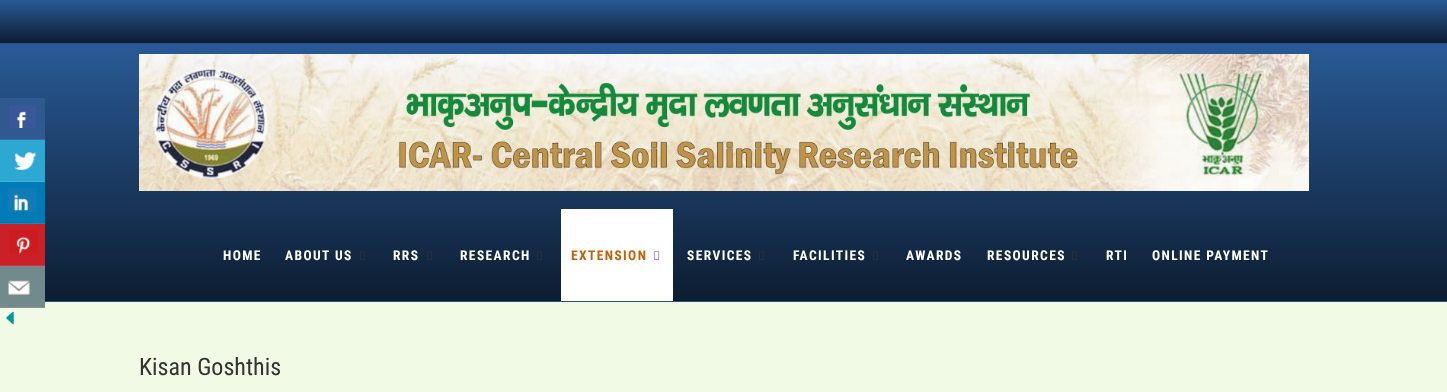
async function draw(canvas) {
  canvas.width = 1447
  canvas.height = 392
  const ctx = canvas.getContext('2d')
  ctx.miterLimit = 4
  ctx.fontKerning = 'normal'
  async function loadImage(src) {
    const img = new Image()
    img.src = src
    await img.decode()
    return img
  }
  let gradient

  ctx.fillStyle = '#fff'
  ctx.fillRect(0, 0, 1447, 392)
  gradient = ctx.createLinearGradient(724, 301, 724, 44)
  gradient.addColorStop(0, '#0d1d31')
  gradient.addColorStop(1, '#295a96')
  ctx.fillStyle = gradient
  ctx.fillRect(0, 44, 1447, 257)
  ctx.fillStyle = '#305891'
  ctx.fillRect(0, 98, 45, 41)
  ctx.fillStyle = '#45699c'
  ctx.fillRect(0, 139, 45, 1)
  ctx.drawImage(await loadImage('image0.png'), 8, 105, 28, 23)
  ctx.fillStyle = '#2ca8d2'
  ctx.fillRect(0, 140, 45, 41)
  ctx.fillStyle = '#41b1d7'
  ctx.fillRect(0, 181, 45, 1)
  ctx.drawImage(await loadImage('image1.png'), 14, 152, 23, 18)
  ctx.fillStyle = '#007bb6'
  ctx.fillRect(0, 182, 45, 41)
  ctx.fillStyle = '#1a88bd'
  ctx.fillRect(0, 223, 45, 1)
  ctx.drawImage(await loadImage('image2.png'), 8, 188, 29, 24)
  ctx.fillStyle = '#ca2027'
  ctx.fillRect(0, 224, 45, 41)
  ctx.fillStyle = '#cf363d'
  ctx.fillRect(0, 265, 45, 1)
  ctx.drawImage(await loadImage('image3.png'), 9, 230, 29, 24)
  ctx.fillStyle = '#f1fae5'
  ctx.fillRect(0, 302, 1447, 90)
  ctx.fillStyle = '#738a8d'
  ctx.fillRect(0, 266, 45, 41)
  ctx.fillStyle = '#819698'
  ctx.fillRect(0, 307, 45, 1)
  ctx.drawImage(await loadImage('image4.png'), 8, 280, 22, 15)
  ctx.drawImage(await loadImage('image5.png'), 6, 311, 8, 14)
  gradient = ctx.createLinearGradient(724, 43, 724, 0)
  gradient.addColorStop(0, '#0d1d31')
  gradient.addColorStop(1, '#295a96')
  ctx.fillStyle = gradient
  ctx.fillRect(0, 0, 1447, 43)
  ctx.fillStyle = '#255086'
  ctx.fillRect(0, 43, 1447, 1)
  ctx.fillStyle = '#255187'
  ctx.fillRect(45, 301, 1402, 1)
  ctx.drawImage(await loadImage('image6.png'), 139, 54, 1170, 137)
  ctx.letterSpacing = '1.4px'
  ctx.font = 'bold 13.5px Roboto Condensed'
  ctx.fillStyle = '#fff'
  ctx.fillText('HOME', 223, 260)
  ctx.fillText('ABOUT US', 285, 260)
  ctx.drawImage(await loadImage('image7.png'), 360, 251, 5, 9)
  ctx.fillText('RRS', 393, 260)
  ctx.drawImage(await loadImage('image7.png'), 427, 251, 5, 9)
  ctx.fillText('RESEARCH', 460, 260)
  ctx.drawImage(await loadImage('image7.png'), 537, 251, 5, 9)
  ctx.fillRect(561, 209, 112, 92)
  ctx.fillStyle = '#c36104'
  ctx.fillText('EXTENSION', 571, 260)
  ctx.drawImage(await loadImage('image8.png'), 654, 251, 6, 9)
  ctx.fillStyle = '#fff'
  ctx.fillText('SERVICES', 687, 260)
  ctx.drawImage(await loadImage('image7.png'), 759, 251, 5, 9)
  ctx.fillText('FACILITIES', 793, 260)
  ctx.drawImage(await loadImage('image7.png'), 873, 251, 5, 9)
  ctx.fillText('AWARDS', 906, 260)
  ctx.fillText('RESOURCES', 987, 260)
  ctx.drawImage(await loadImage('image7.png'), 1072, 251, 5, 9)
  ctx.fillText('RTI', 1106, 260)
  ctx.fillText('ONLINE PAYMENT', 1152, 260)
  ctx.letterSpacing = '0px'
  ctx.font = '24px Roboto Condensed'
  ctx.fillStyle = '#333'
  ctx.fillText('Kisan Goshthis', 139, 375)
}

draw(document.querySelector('canvas'))
